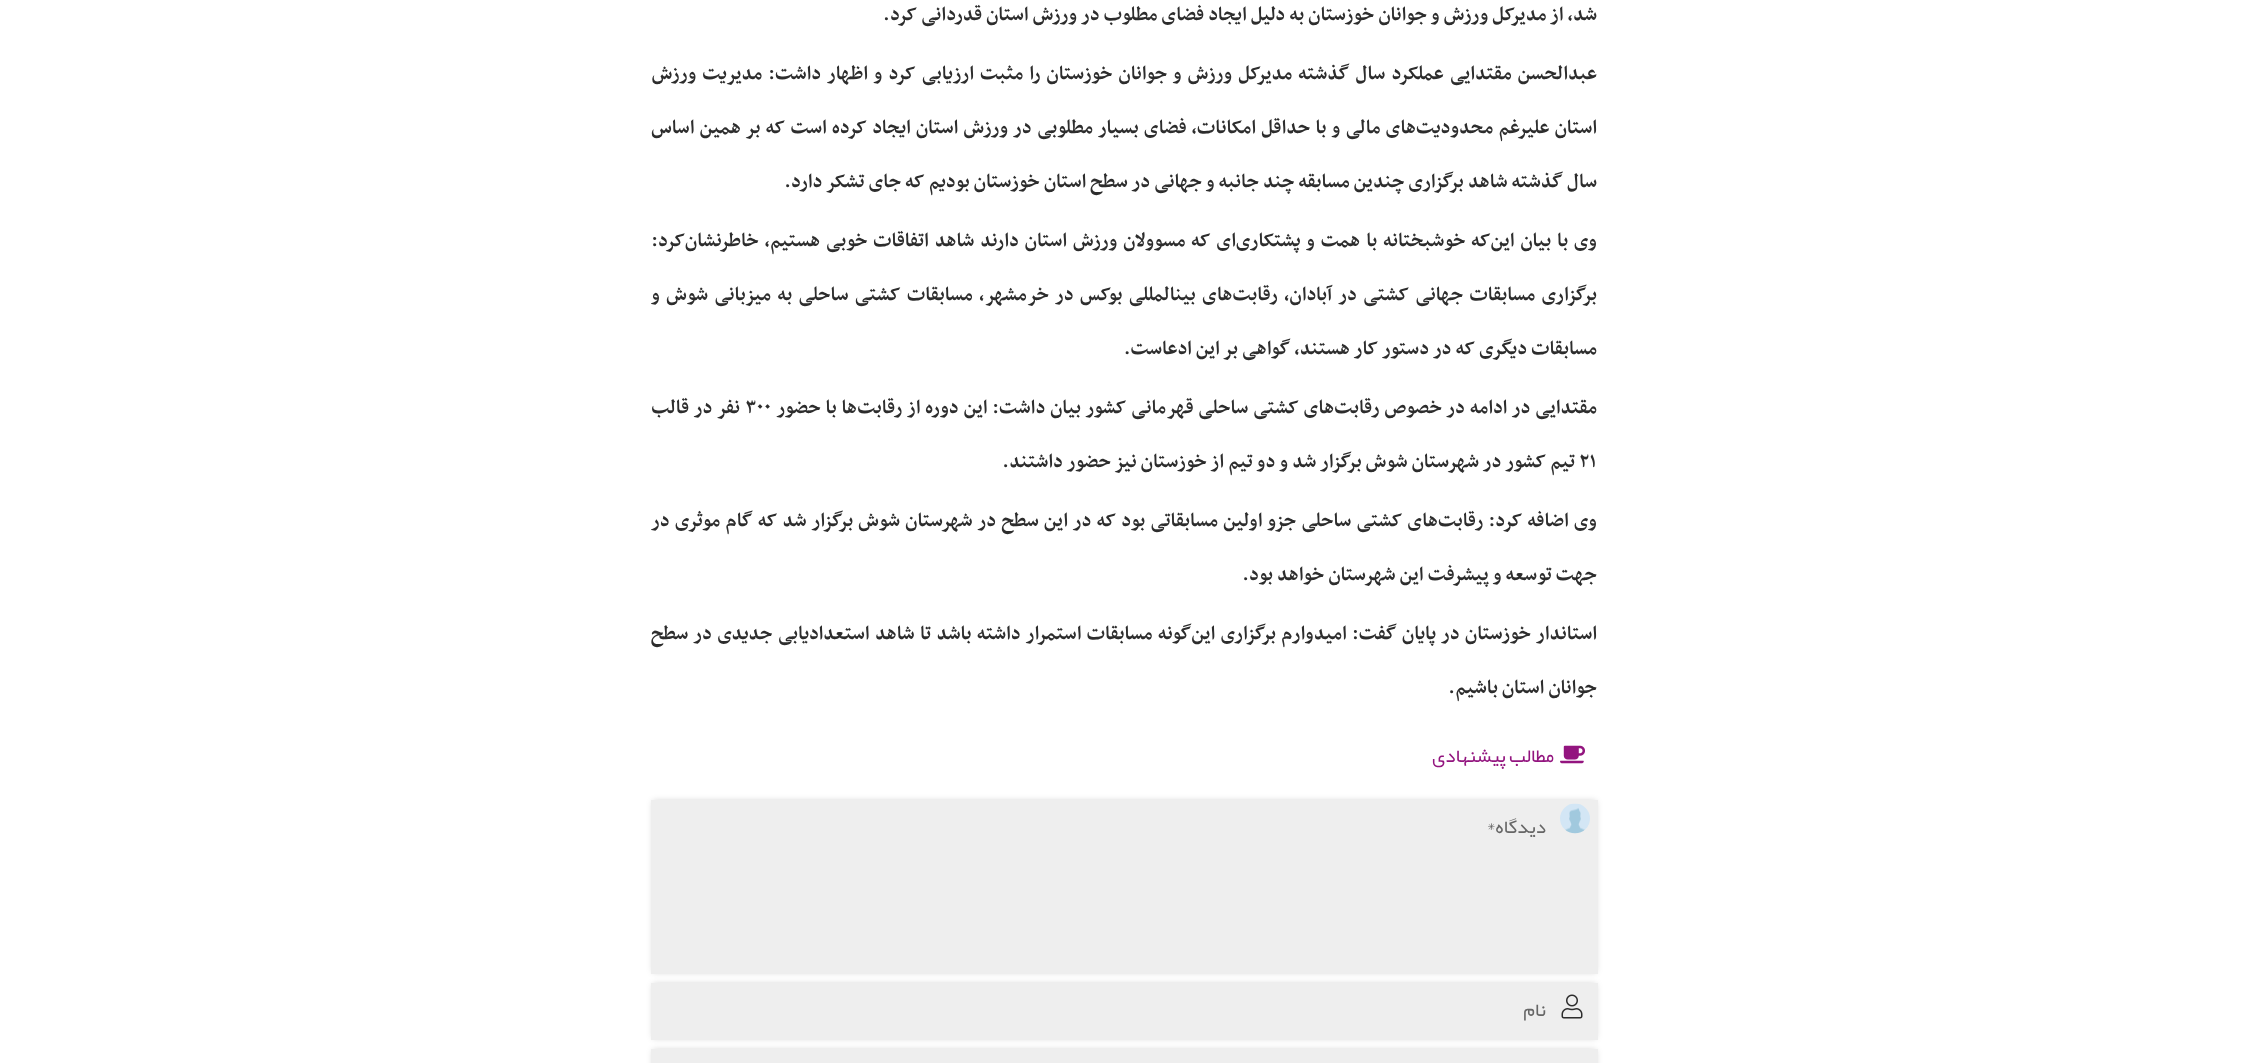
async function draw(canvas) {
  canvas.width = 2248
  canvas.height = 1063
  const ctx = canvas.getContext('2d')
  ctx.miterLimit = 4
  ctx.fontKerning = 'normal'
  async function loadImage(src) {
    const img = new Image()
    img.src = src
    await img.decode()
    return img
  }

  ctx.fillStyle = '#fff'
  ctx.fillRect(0, 0, 2248, 1063)
  ctx.direction = 'rtl'
  ctx.font = 'bold 22.6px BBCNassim'
  ctx.fillStyle = '#2d2d2d'
  ctx.fillText('شد، از مدیرکل ورزش و جوانان خوزستان به دلیل ایجاد فضای مطلوب در ورزش استان قدردانی کرد.', 1597, 20)
  ctx.wordSpacing = '1.9px'
  ctx.fillText('عبدالحسن مقتدایی عملکرد سال گذشته مدیرکل ورزش و جوانان خوزستان را مثبت ارزیابی کرد و اظهار داشت: مدیریت ورزش', 1597, 79)
  ctx.wordSpacing = '1.2px'
  ctx.fillText('استان علیرغم محدودیت‌های مالی و با حداقل امکانات، فضای بسیار مطلوبی در ورزش استان ایجاد کرده است که بر همین اساس', 1597, 133)
  ctx.wordSpacing = '0px'
  ctx.fillText('سال گذشته شاهد برگزاری چندین مسابقه چند جانبه و جهانی در سطح استان خوزستان بودیم که جای تشکر دارد.', 1597, 187)
  ctx.wordSpacing = '1.75px'
  ctx.fillText('وی با بیان این‌که خوشبختانه با همت و پشتکاری‌ای که مسوولان ورزش استان دارند شاهد اتفاقات خوبی هستیم، خاطرنشان‌کرد:', 1597, 246)
  ctx.wordSpacing = '2.25px'
  ctx.fillText('برگزاری مسابقات جهانی کشتی در آبادان، رقابت‌های بینالمللی بوکس در خرمشهر، مسابقات کشتی ساحلی به میزبانی شوش و', 1597, 300)
  ctx.wordSpacing = '0px'
  ctx.fillText('مسابقات دیگری که در دستور کار هستند، گواهی بر این ادعاست.', 1597, 354)
  ctx.wordSpacing = '0.75px'
  ctx.fillText('مقتدایی در ادامه در خصوص رقابت‌های کشتی ساحلی قهرمانی کشور بیان داشت: این دوره از رقابت‌ها با حضور', 1597, 413)
  ctx.wordSpacing = '0px'
  ctx.direction = 'ltr'
  ctx.fillText('۳۰۰', 745, 413)
  ctx.wordSpacing = '1px'
  ctx.direction = 'rtl'
  ctx.fillText('نفر در قالب', 740, 413)
  ctx.wordSpacing = '0px'
  ctx.direction = 'ltr'
  ctx.fillText('۲۱', 1579, 467)
  ctx.direction = 'rtl'
  ctx.fillText('تیم کشور در شهرستان شوش برگزار شد و دو تیم از خوزستان نیز حضور داشتند.', 1575, 467)
  ctx.wordSpacing = '1.1px'
  ctx.fillText('وی اضافه کرد: رقابت‌های کشتی ساحلی جزو اولین مسابقاتی بود که در این سطح در شهرستان شوش برگزار شد که گام موثری در', 1597, 526)
  ctx.wordSpacing = '0px'
  ctx.fillText('جهت توسعه و پیشرفت این شهرستان خواهد بود.', 1597, 580)
  ctx.wordSpacing = '1.25px'
  ctx.fillText('استاندار خوزستان در پایان گفت: امیدوارم برگزاری این‌گونه مسابقات استمرار داشته باشد تا شاهد استعدادیابی جدیدی در سطح', 1597, 639)
  ctx.wordSpacing = '0px'
  ctx.fillText('جوانان استان باشیم.', 1597, 693)
  ctx.drawImage(await loadImage('image0.png'), 1560, 745, 25, 19)
  ctx.font = '19.5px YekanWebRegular'
  ctx.fillStyle = '#93157f'
  ctx.fillText('مطالب پیشنهادی', 1554, 762)
  ctx.fillStyle = '#00000033'
  ctx.filter = 'blur(3px)'
  ctx.beginPath()
  ctx.rect(653, 801, 943, 171)
  ctx.fill()
  ctx.filter = 'none'
  ctx.fillStyle = '#eee'
  ctx.fillRect(651, 800, 947, 174)
  ctx.drawImage(await loadImage('image1.png'), 1560, 803, 30, 31)
  ctx.fillStyle = '#666'
  ctx.fillText('دیدگاه*', 1546, 833)
  ctx.fillStyle = '#00000033'
  ctx.filter = 'blur(3px)'
  ctx.beginPath()
  ctx.rect(653, 984, 943, 54)
  ctx.fill()
  ctx.filter = 'none'
  ctx.fillStyle = '#eee'
  ctx.fillRect(651, 983, 947, 57)
  ctx.drawImage(await loadImage('image2.png'), 1561, 994, 22, 25)
  ctx.fillStyle = '#666'
  ctx.fillText('نام', 1546, 1016)
  ctx.fillStyle = '#00000033'
  ctx.filter = 'blur(3px)'
  ctx.beginPath()
  ctx.rect(653, 1050, 943, 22)
  ctx.fill()
  ctx.filter = 'none'
  ctx.fillStyle = '#eee'
  ctx.fillRect(651, 1049, 947, 14)
}

draw(document.querySelector('canvas'))
